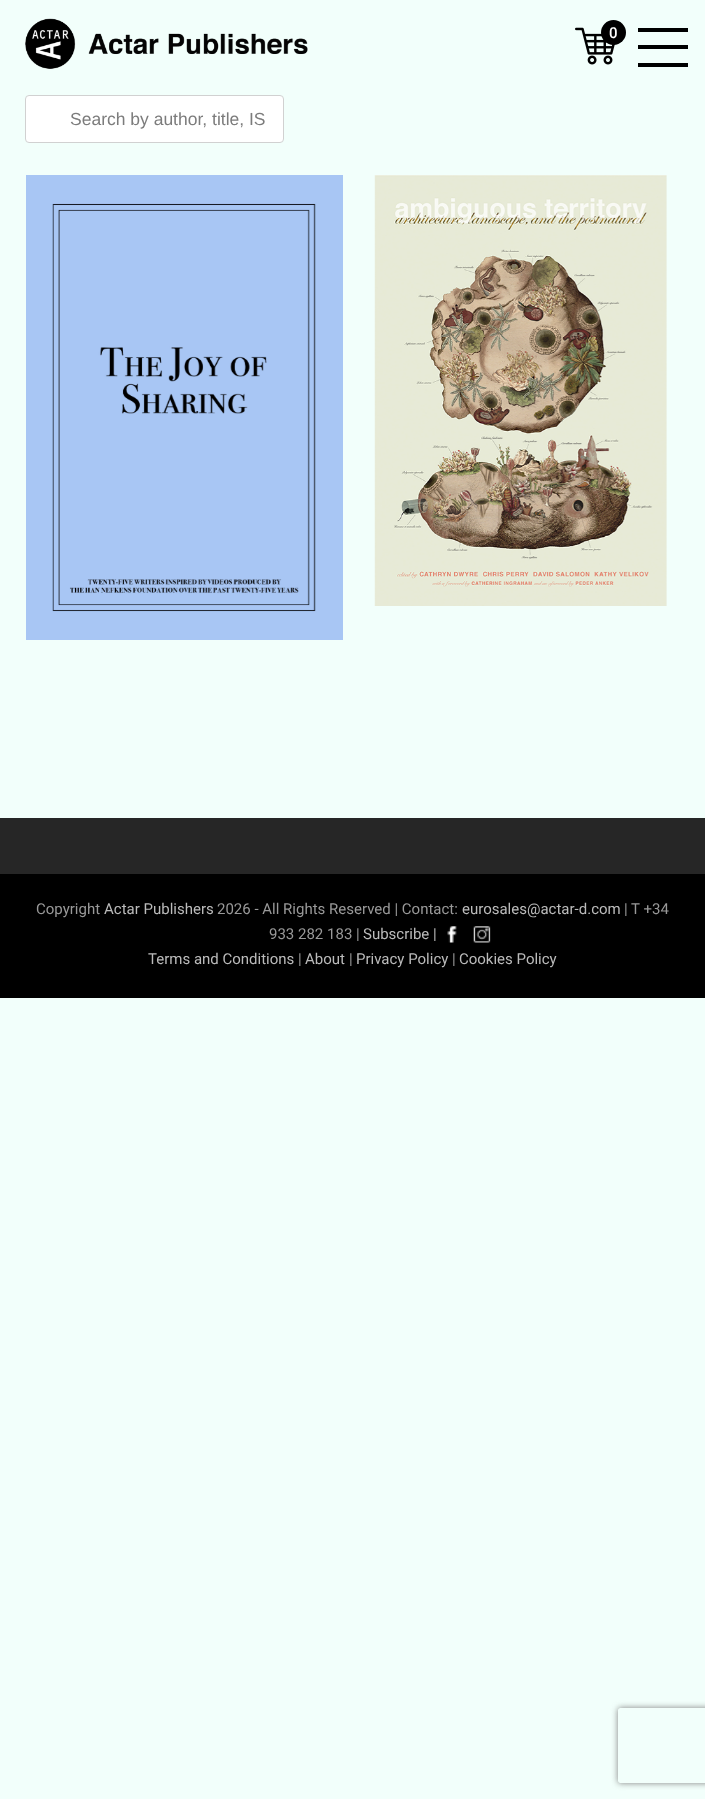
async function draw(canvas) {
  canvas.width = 705
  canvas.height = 1799
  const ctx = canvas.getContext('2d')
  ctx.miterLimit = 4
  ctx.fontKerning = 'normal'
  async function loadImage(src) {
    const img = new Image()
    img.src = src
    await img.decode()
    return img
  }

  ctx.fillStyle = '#f2fffb'
  ctx.fillRect(0, 0, 705, 1799)
  ctx.drawImage(await loadImage('image0.png'), 575, 27, 40, 38)
  ctx.fillStyle = '#000'
  ctx.beginPath()
  ctx.arc(613.5, 32.5, 12.5, 0, 2 * Math.PI)
  ctx.fill()
  ctx.font = '500 15px Roboto'
  ctx.fillStyle = '#fff'
  ctx.fillText('0', 609, 38)
  ctx.drawImage(await loadImage('image1.png'), 25, 18, 283, 51)
  ctx.fillStyle = '#000'
  ctx.fillRect(638, 45, 50, 4)
  ctx.fillRect(638, 28, 50, 4)
  ctx.fillRect(638, 63, 50, 4)
  ctx.fillStyle = '#fff'
  ctx.beginPath()
  ctx.roundRect(25.5, 95.5, 258, 47, 3.5)
  ctx.fill()
  ctx.strokeStyle = '#d1d1d1'
  ctx.stroke()
  ctx.font = '17.5px Liberation Sans'
  ctx.fillStyle = '#7c7c7c'
  ctx.fillText('Search by author, title, IS', 70, 125)
  ctx.drawImage(await loadImage('image2.png'), 26, 175, 317, 465)
  ctx.drawImage(await loadImage('image3.png'), 374, 175, 293, 431)
  ctx.fillStyle = '#262626'
  ctx.fillRect(0, 818, 705, 56)
  ctx.fillStyle = '#000'
  ctx.fillRect(0, 874, 705, 124)
  ctx.font = '15px Roboto'
  ctx.fillStyle = '#999'
  ctx.fillText('Copyright', 36, 914)
  ctx.fillStyle = '#bbb'
  ctx.fillText('Actar Publishers', 104, 914)
  ctx.fillStyle = '#999'
  ctx.fillText('2026 - All Rights Reserved | Contact:', 217, 914)
  ctx.fillStyle = '#bbb'
  ctx.fillText('eurosales@actar-d.com', 462, 914)
  ctx.fillStyle = '#999'
  ctx.fillText('| T +34', 624, 914)
  ctx.fillText('933 282 183 |', 269, 939)
  ctx.fillStyle = '#bbb'
  ctx.fillText('Subscribe |', 363, 939)
  ctx.drawImage(await loadImage('image4.png'), 447, 926, 10, 17)
  ctx.drawImage(await loadImage('image5.png'), 473, 926, 18, 17)
  ctx.fillText('Terms and Conditions', 148, 964)
  ctx.fillStyle = '#999'
  ctx.fillText('|', 298, 964)
  ctx.fillStyle = '#bbb'
  ctx.fillText('About', 305, 964)
  ctx.fillStyle = '#999'
  ctx.fillText('|', 349, 964)
  ctx.fillStyle = '#bbb'
  ctx.fillText('Privacy Policy', 356, 964)
  ctx.fillStyle = '#999'
  ctx.fillText('|', 452, 964)
  ctx.fillStyle = '#bbb'
  ctx.fillText('Cookies Policy', 459, 964)
  ctx.save()
  ctx.beginPath()
  ctx.moveTo(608, 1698)
  ctx.lineTo(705, 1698)
  ctx.lineTo(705, 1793)
  ctx.lineTo(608, 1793)
  ctx.closePath()
  ctx.moveTo(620.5, 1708)
  ctx.lineTo(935.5, 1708)
  ctx.bezierCurveTo(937, 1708, 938, 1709, 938, 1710.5)
  ctx.lineTo(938, 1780.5)
  ctx.bezierCurveTo(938, 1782, 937, 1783, 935.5, 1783)
  ctx.lineTo(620.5, 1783)
  ctx.bezierCurveTo(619, 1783, 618, 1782, 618, 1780.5)
  ctx.lineTo(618, 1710.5)
  ctx.bezierCurveTo(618, 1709, 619, 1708, 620.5, 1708)
  ctx.closePath()
  ctx.clip('evenodd')
  ctx.fillStyle = '#808080'
  ctx.filter = 'blur(3px)'
  ctx.beginPath()
  ctx.roundRect(618, 1708, 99, 75, 2.5)
  ctx.fill()
  ctx.filter = 'none'
  ctx.restore()
}

draw(document.querySelector('canvas'))
